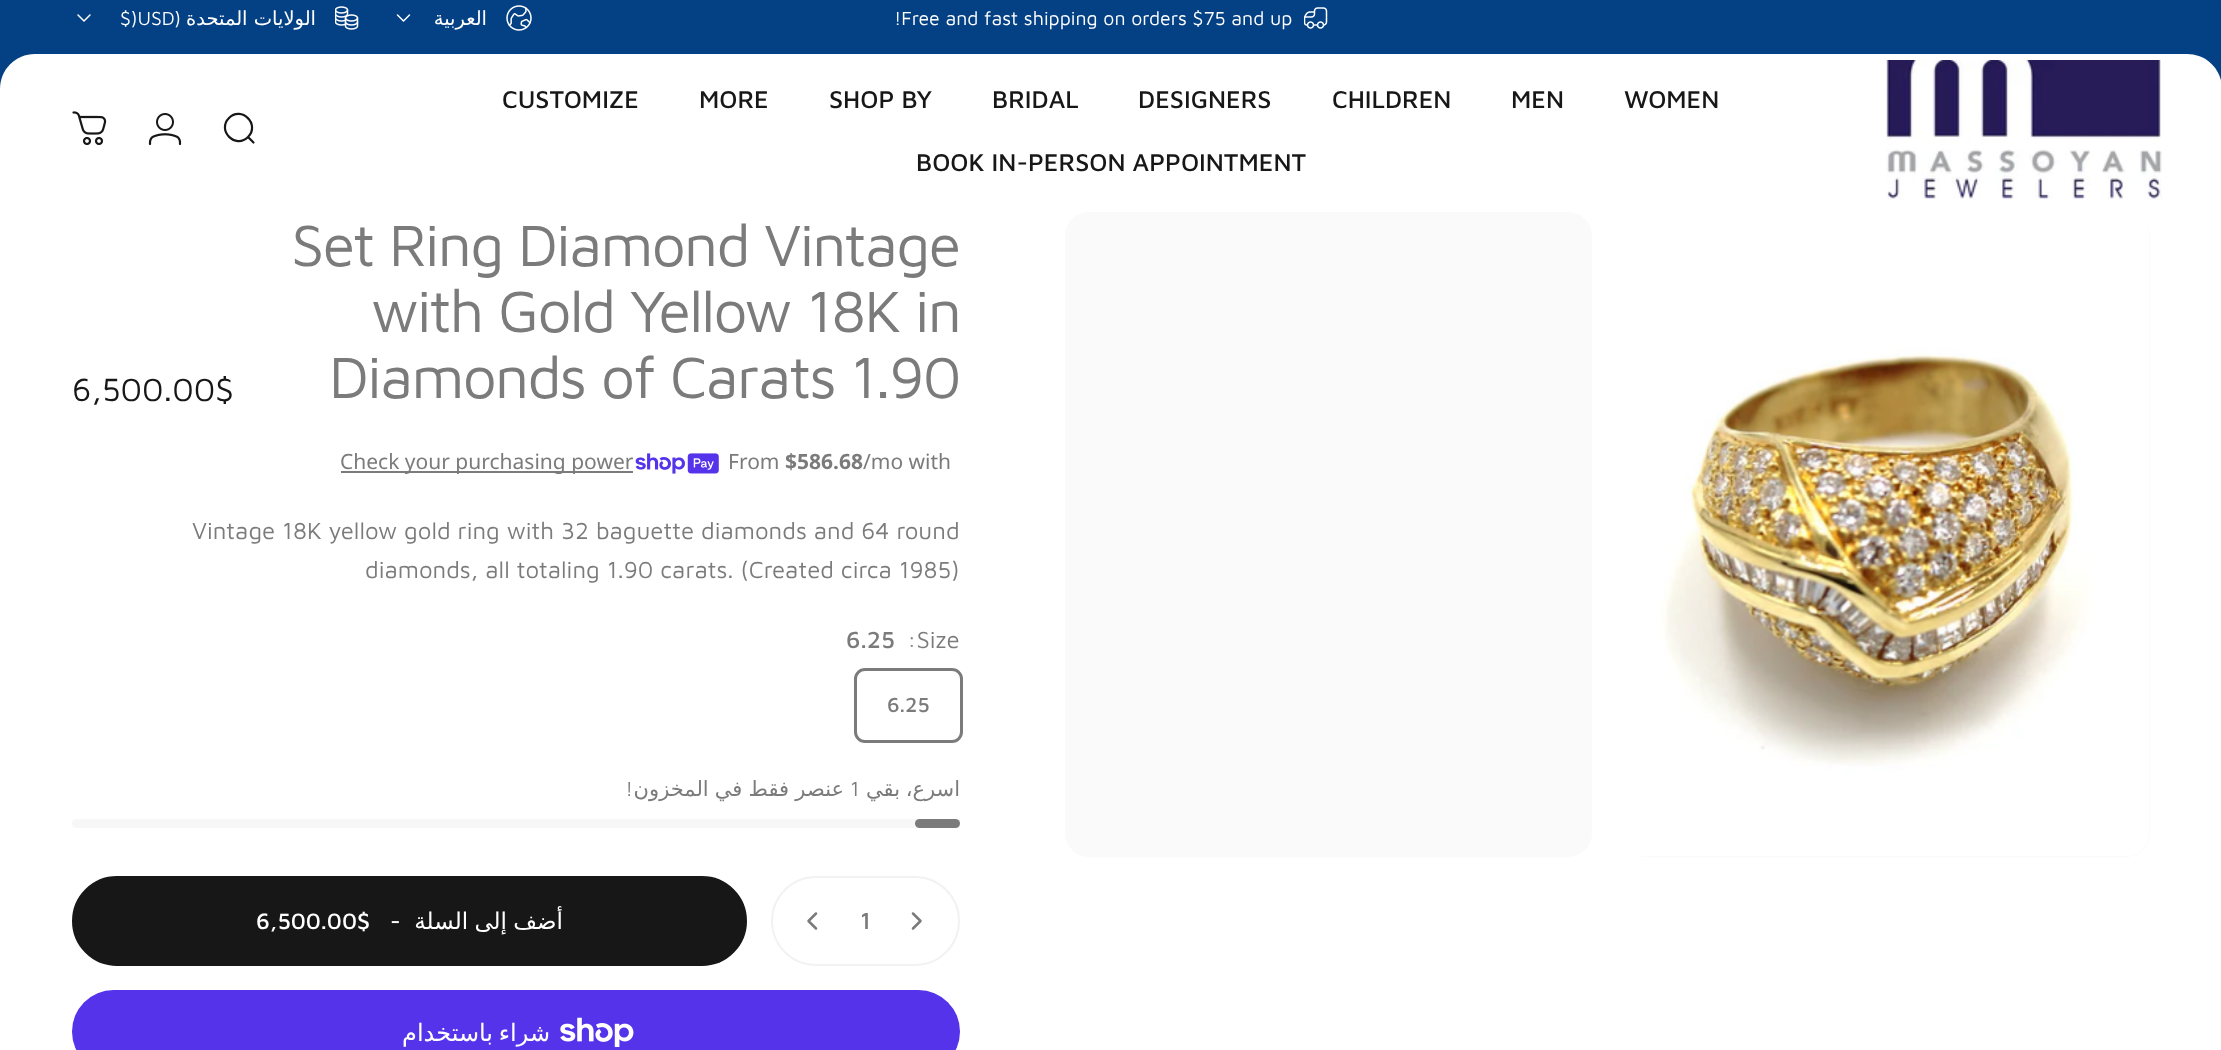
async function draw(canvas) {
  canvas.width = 2221
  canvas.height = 1050
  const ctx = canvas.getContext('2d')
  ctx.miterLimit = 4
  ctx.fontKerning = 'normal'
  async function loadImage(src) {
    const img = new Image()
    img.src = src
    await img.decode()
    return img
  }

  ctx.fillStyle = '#fff'
  ctx.fillRect(0, 0, 2221, 1050)
  ctx.fillStyle = '#034084'
  ctx.fillRect(0, 0, 2221, 17)
  ctx.beginPath()
  ctx.moveTo(35, -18)
  ctx.lineTo(2187, -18)
  ctx.bezierCurveTo(2206.5, -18, 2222, -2.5, 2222, 17)
  ctx.lineTo(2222, 89)
  ctx.lineTo(0, 89)
  ctx.lineTo(0, 17)
  ctx.bezierCurveTo(0, -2.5, 15.5, -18, 35, -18)
  ctx.closePath()
  ctx.fill()
  ctx.beginPath()
  ctx.moveTo(78, 15)
  ctx.lineTo(84, 21)
  ctx.lineTo(90, 15)
  ctx.strokeStyle = '#fff'
  ctx.lineWidth = 1.5
  ctx.lineCap = 'round'
  ctx.lineJoin = 'round'
  ctx.stroke()
  ctx.font = '19.5px Maven Pro'
  ctx.fillStyle = '#fff'
  ctx.fillText('$)USD', 120, 25)
  ctx.direction = 'rtl'
  ctx.fillText('(', 181, 25)
  ctx.font = '19.5px DejaVu Sans'
  ctx.fillText('الولايات المتحدة', 316, 25)
  ctx.drawImage(await loadImage('image0.png'), 335, 6, 24, 24)
  ctx.beginPath()
  ctx.moveTo(397.5, 15)
  ctx.lineTo(403.5, 21)
  ctx.lineTo(409.5, 15)
  ctx.stroke()
  ctx.fillText('العربية', 487, 25)
  ctx.drawImage(await loadImage('image1.png'), 506, 5, 26, 26)
  ctx.direction = 'ltr'
  ctx.font = '19.5px Maven Pro'
  ctx.fillText('!Free and fast shipping on orders $75 and up', 894, 25)
  ctx.drawImage(await loadImage('image2.png'), 1304, 7, 24, 22)
  ctx.beginPath()
  ctx.moveTo(35, 54)
  ctx.lineTo(2187, 54)
  ctx.bezierCurveTo(2206.5, 54, 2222, 69.5, 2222, 89)
  ctx.lineTo(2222, 206)
  ctx.lineTo(0, 206)
  ctx.lineTo(0, 89)
  ctx.bezierCurveTo(0, 69.5, 15.5, 54, 35, 54)
  ctx.closePath()
  ctx.fill()
  ctx.drawImage(await loadImage('image3.png'), 72, 111, 35, 35)
  ctx.drawImage(await loadImage('image4.png'), 148, 113, 34, 33)
  ctx.beginPath()
  ctx.moveTo(253.5, 142.5)
  ctx.lineTo(248, 137)
  ctx.moveTo(248, 137)
  ctx.bezierCurveTo(260.5, 124.5, 241.5, 105.5, 229, 118)
  ctx.bezierCurveTo(216.5, 130.5, 235.5, 149.5, 248, 137)
  ctx.closePath()
  ctx.strokeStyle = '#171717'
  ctx.lineWidth = 2.2
  ctx.lineJoin = 'miter'
  ctx.stroke()
  ctx.font = '500 25px Maven Pro'
  ctx.fillStyle = '#171717'
  ctx.fillText('CUSTOMIZE', 502, 108)
  ctx.fillText('MORE', 699, 108)
  ctx.fillText('SHOP BY', 829, 108)
  ctx.fillText('BRIDAL', 992, 108)
  ctx.fillText('DESIGNERS', 1138, 108)
  ctx.fillText('CHILDREN', 1332, 108)
  ctx.fillText('MEN', 1511, 108)
  ctx.fillText('WOMEN', 1624, 108)
  ctx.fillText('BOOK IN-PERSON APPOINTMENT', 916, 171)
  ctx.drawImage(await loadImage('image5.png'), 1886, 60, 276, 140)
  ctx.font = '33.25px Maven Pro'
  ctx.fillText('6,500.00$', 72, 401)
  ctx.letterSpacing = '-1.75px'
  ctx.font = '60px Maven Pro'
  ctx.fillStyle = '#7b7b7b'
  ctx.fillText('Set', 291, 266)
  ctx.fillText('Ring', 389, 266)
  ctx.fillText('Diamond', 518, 266)
  ctx.fillText('Vintage', 764, 266)
  ctx.fillText('with', 371, 332)
  ctx.fillText('Gold', 498, 332)
  ctx.fillText('Yellow', 630, 332)
  ctx.fillText('18K', 806, 332)
  ctx.fillText('in', 915, 332)
  ctx.fillText('Diamonds', 329, 398)
  ctx.fillText('of', 601, 398)
  ctx.fillText('Carats', 670, 398)
  ctx.fillText('1.90', 850, 398)
  ctx.fillRect(341, 471, 292, 2)
  ctx.letterSpacing = '0px'
  ctx.font = '21px Noto Sans'
  ctx.fillText('Check your purchasing power', 340, 469)
  ctx.drawImage(await loadImage('image6.png'), 635, 453, 84, 21)
  ctx.fillText('From', 728, 469)
  ctx.font = 'bold 21px Noto Sans'
  ctx.fillText('$586.68', 785, 469)
  ctx.font = '21px Noto Sans'
  ctx.fillText('/mo with', 863, 469)
  ctx.font = '24px Maven Pro'
  ctx.fillText('Vintage 18K yellow gold ring with 32 baguette diamonds and 64 round', 192, 539)
  ctx.fillText('diamonds, all totaling 1.90 carats. (Created circa 1985)', 365, 578)
  ctx.font = '500 24px Maven Pro'
  ctx.fillText('6.25', 846, 648)
  ctx.font = '24px Maven Pro'
  ctx.fillText(':Size', 907, 648)
  ctx.beginPath()
  ctx.roundRect(855.5, 669.5, 106, 72, 9.5)
  ctx.strokeStyle = '#7b7b7b'
  ctx.lineWidth = 3
  ctx.stroke()
  ctx.font = '500 21px Maven Pro'
  ctx.fillText('6.25', 887, 712)
  ctx.direction = 'rtl'
  ctx.font = '21px Maven Pro'
  ctx.fillText('!', 633, 796)
  ctx.wordSpacing = '-0.5px'
  ctx.font = '21px DejaVu Sans'
  ctx.fillText('عنصر فقط في المخزون', 844, 796)
  ctx.wordSpacing = '0px'
  ctx.direction = 'ltr'
  ctx.font = '21px Maven Pro'
  ctx.fillText('1', 850, 796)
  ctx.wordSpacing = '-1px'
  ctx.direction = 'rtl'
  ctx.font = '21px DejaVu Sans'
  ctx.fillText('اسرع، بقي', 960, 796)
  ctx.fillStyle = '#f7f7f7'
  ctx.beginPath()
  ctx.roundRect(72, 819, 888, 9, 4.5)
  ctx.fill()
  ctx.fillStyle = '#7b7b7b'
  ctx.beginPath()
  ctx.roundRect(915, 819, 45, 9, 4.5)
  ctx.fill()
  ctx.fillStyle = '#171717'
  ctx.beginPath()
  ctx.roundRect(73.5, 877.5, 672, 87, 43.5)
  ctx.fill()
  ctx.strokeStyle = '#171717'
  ctx.stroke()
  ctx.wordSpacing = '0px'
  ctx.direction = 'ltr'
  ctx.font = '500 23px Maven Pro'
  ctx.fillStyle = '#fff'
  ctx.fillText('6,500.00$', 256, 929)
  ctx.fillText('-', 390, 929)
  ctx.wordSpacing = '-1px'
  ctx.direction = 'rtl'
  ctx.font = '23px DejaVu Sans'
  ctx.fillText('أضف إلى السلة', 563, 929)
  ctx.beginPath()
  ctx.roundRect(772, 877, 187, 88, 44)
  ctx.strokeStyle = '#f2f2f2'
  ctx.lineWidth = 2
  ctx.stroke()
  ctx.beginPath()
  ctx.moveTo(816, 913.5)
  ctx.lineTo(808.5, 921)
  ctx.lineTo(816, 928.5)
  ctx.strokeStyle = '#7b7b7b'
  ctx.lineWidth = 2.5
  ctx.lineJoin = 'round'
  ctx.stroke()
  ctx.wordSpacing = '0px'
  ctx.direction = 'ltr'
  ctx.font = '500 24px Maven Pro'
  ctx.fillStyle = '#7b7b7b'
  ctx.fillText('1', 860, 929)
  ctx.beginPath()
  ctx.moveTo(913, 913.5)
  ctx.lineTo(920.5, 921)
  ctx.lineTo(913, 928.5)
  ctx.stroke()
  ctx.fillStyle = '#5433eb'
  ctx.beginPath()
  ctx.roundRect(72, 990, 888, 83, 41.5)
  ctx.fill()
  ctx.direction = 'rtl'
  ctx.font = '24px DejaVu Sans'
  ctx.fillStyle = '#fff'
  ctx.fillText('باستخدام', 493, 1041)
  ctx.fillText('شراء', 550, 1041)
  ctx.drawImage(await loadImage('image7.png'), 560, 1017, 74, 30)
  ctx.fillStyle = '#fafafa'
  ctx.beginPath()
  ctx.roundRect(1065, 212, 527, 645, 24)
  ctx.fill()
  ctx.beginPath()
  ctx.roundRect(1622, 212, 528, 645, 24)
  ctx.fill()
  ctx.drawImage(await loadImage('image8.png'), 1622, 212, 527, 644)
}

draw(document.querySelector('canvas'))
